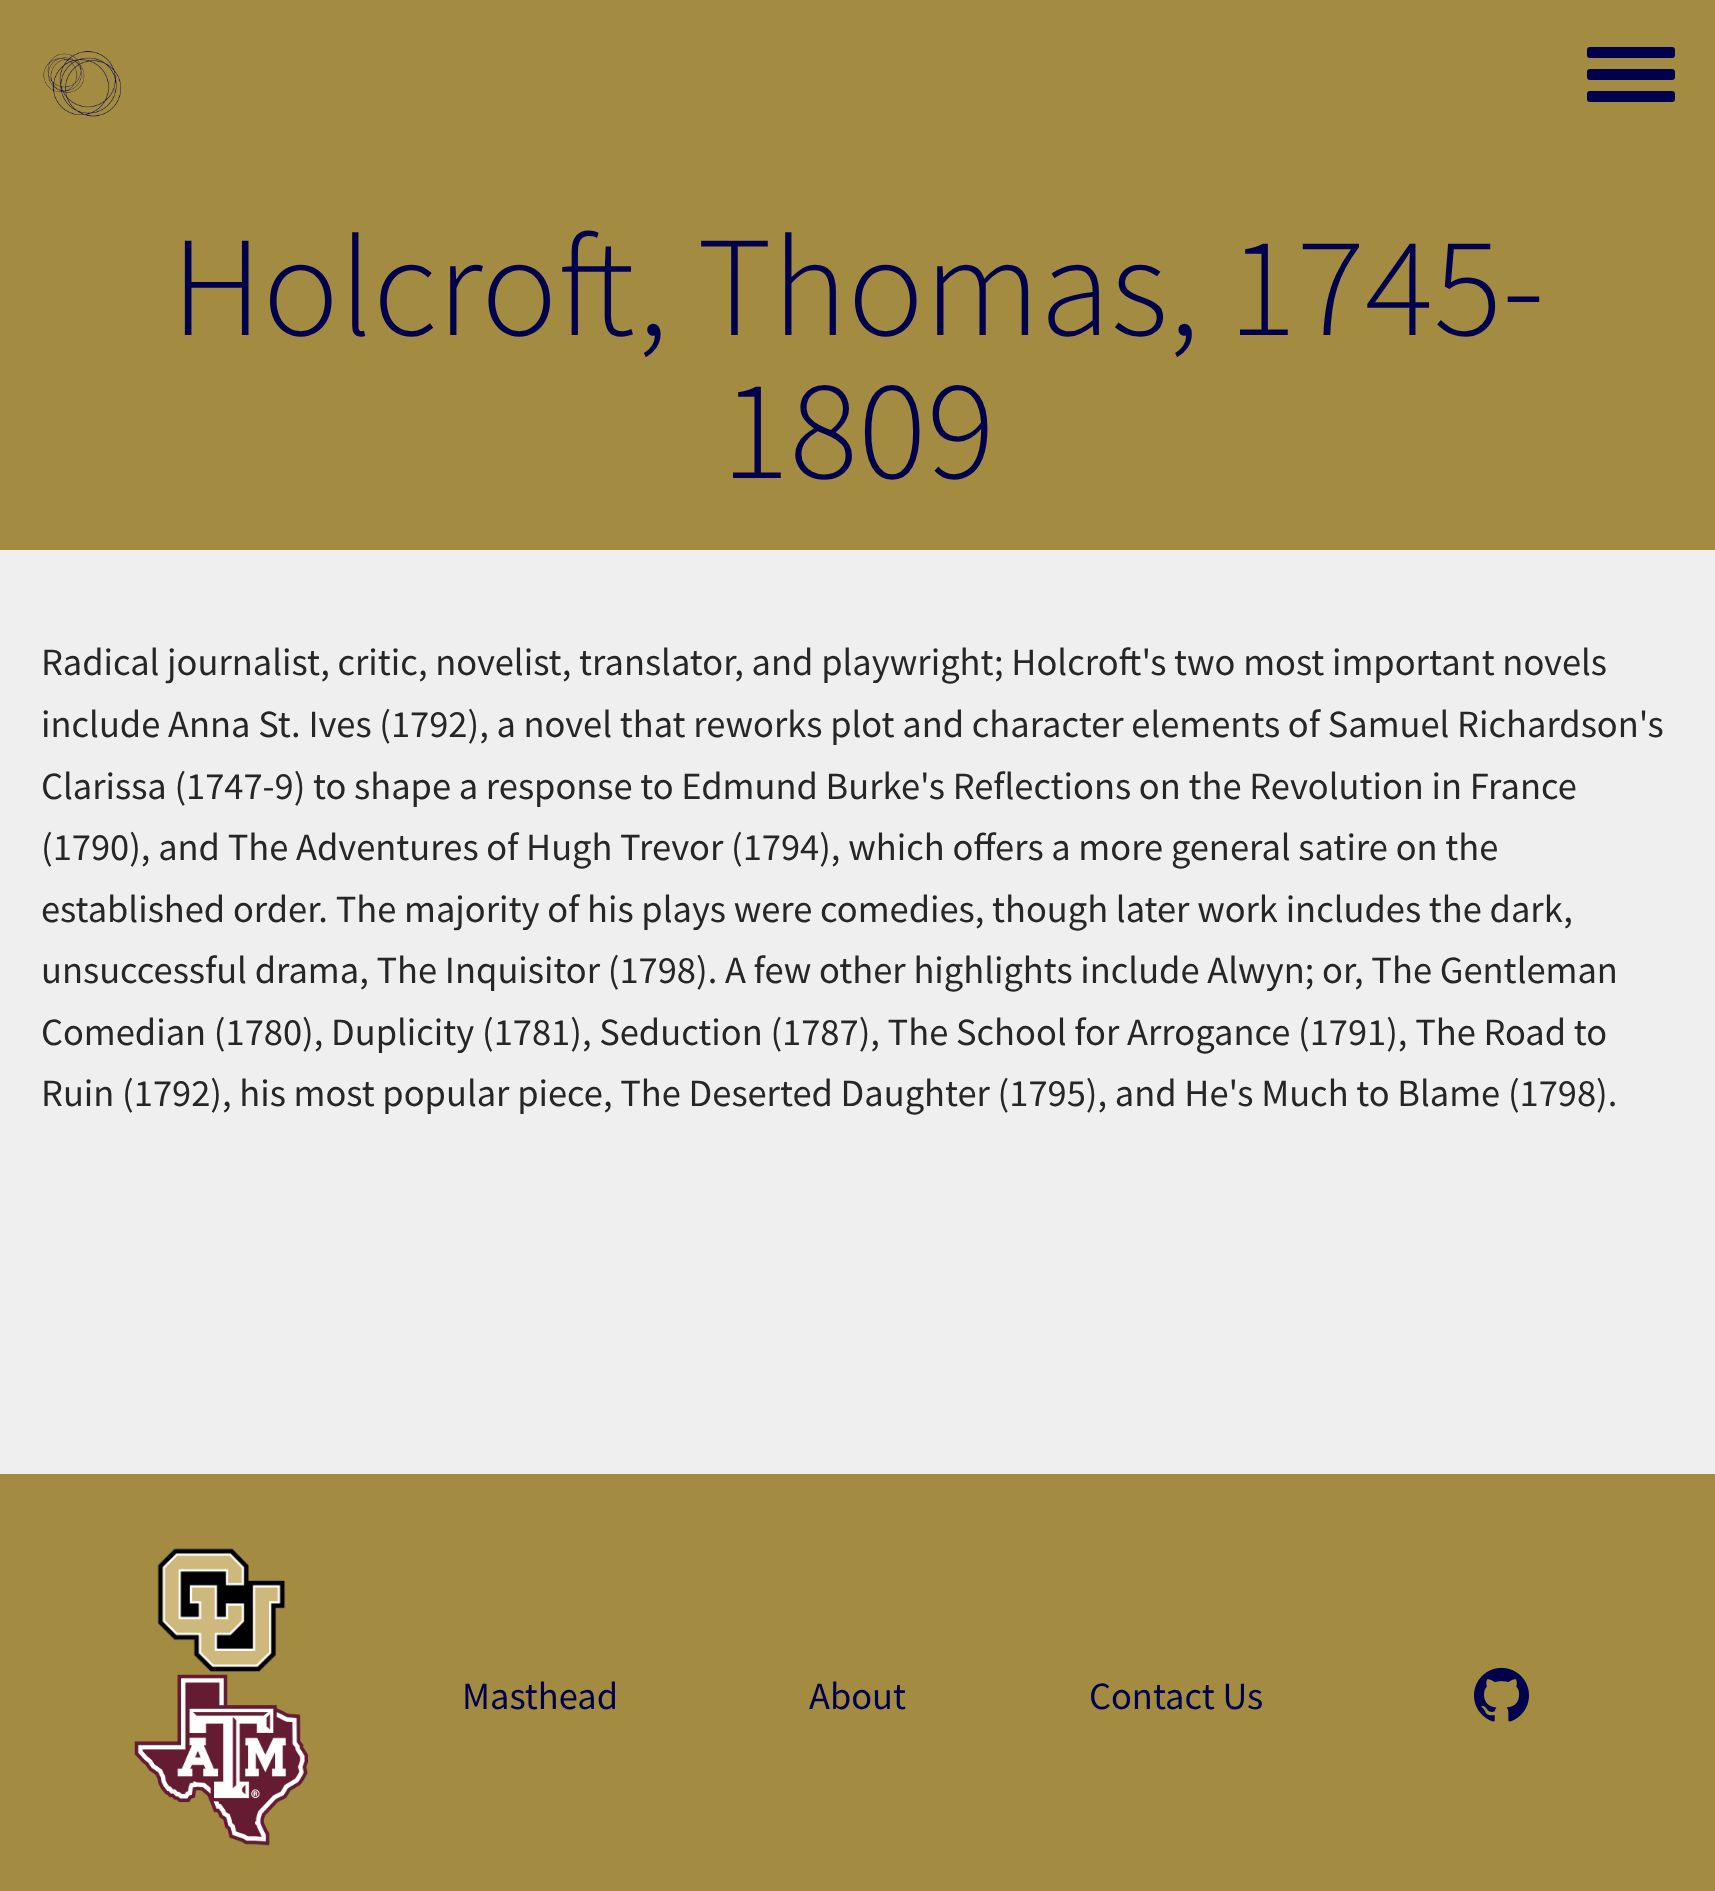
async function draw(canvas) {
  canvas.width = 1715
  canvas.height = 1891
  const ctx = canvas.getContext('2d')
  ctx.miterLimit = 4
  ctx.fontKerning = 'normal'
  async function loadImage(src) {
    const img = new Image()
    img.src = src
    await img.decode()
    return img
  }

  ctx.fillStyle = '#efefef'
  ctx.fillRect(0, 0, 1715, 1891)
  ctx.fillStyle = '#a38c42'
  ctx.fillRect(0, 0, 1715, 550)
  ctx.drawImage(await loadImage('image0.png'), 43, 51, 78, 66)
  ctx.fillStyle = '#00004d'
  ctx.beginPath()
  ctx.roundRect(1587, 69, 88, 11, 3)
  ctx.fill()
  ctx.beginPath()
  ctx.roundRect(1587, 47, 88, 11, 3)
  ctx.fill()
  ctx.beginPath()
  ctx.roundRect(1587, 91, 88, 11, 3)
  ctx.fill()
  ctx.font = '300 143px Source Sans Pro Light'
  ctx.fillText('Holcroft, Thomas, 1745-', 171, 335)
  ctx.fillText('1809', 721, 478)
  ctx.font = '38.5px Source Sans Pro'
  ctx.fillStyle = '#262626'
  ctx.fillText('Radical journalist, critic, novelist, translator, and playwright; Holcroft\'s two most important novels', 41, 675)
  ctx.fillText('include Anna St. Ives (1792), a novel that reworks plot and character elements of Samuel Richardson\'s', 41, 737)
  ctx.fillText('Clarissa (1747-9) to shape a response to Edmund Burke\'s Reflections on the Revolution in France', 41, 799)
  ctx.fillText('(1790), and The Adventures of Hugh Trevor (1794), which offers a more general satire on the', 41, 860)
  ctx.fillText('established order. The majority of his plays were comedies, though later work includes the dark,', 41, 922)
  ctx.fillText('unsuccessful drama, The Inquisitor (1798). A few other highlights include Alwyn; or, The Gentleman', 41, 983)
  ctx.fillText('Comedian (1780), Duplicity (1781), Seduction (1787), The School for Arrogance (1791), The Road to', 41, 1045)
  ctx.fillText('Ruin (1792), his most popular piece, The Deserted Daughter (1795), and He\'s Much to Blame (1798).', 41, 1106)
  ctx.fillStyle = '#a38c42'
  ctx.fillRect(0, 1474, 1715, 417)
  ctx.drawImage(await loadImage('image1.png'), 157, 1548, 129, 124)
  ctx.drawImage(await loadImage('image2.png'), 134, 1674, 174, 172)
  ctx.fillStyle = '#00004d'
  ctx.fillText('Masthead', 462, 1709)
  ctx.fillText('About', 809, 1709)
  ctx.fillText('Contact Us', 1089, 1709)
  ctx.drawImage(await loadImage('image3.png'), 1474, 1667, 55, 55)
}

draw(document.querySelector('canvas'))
